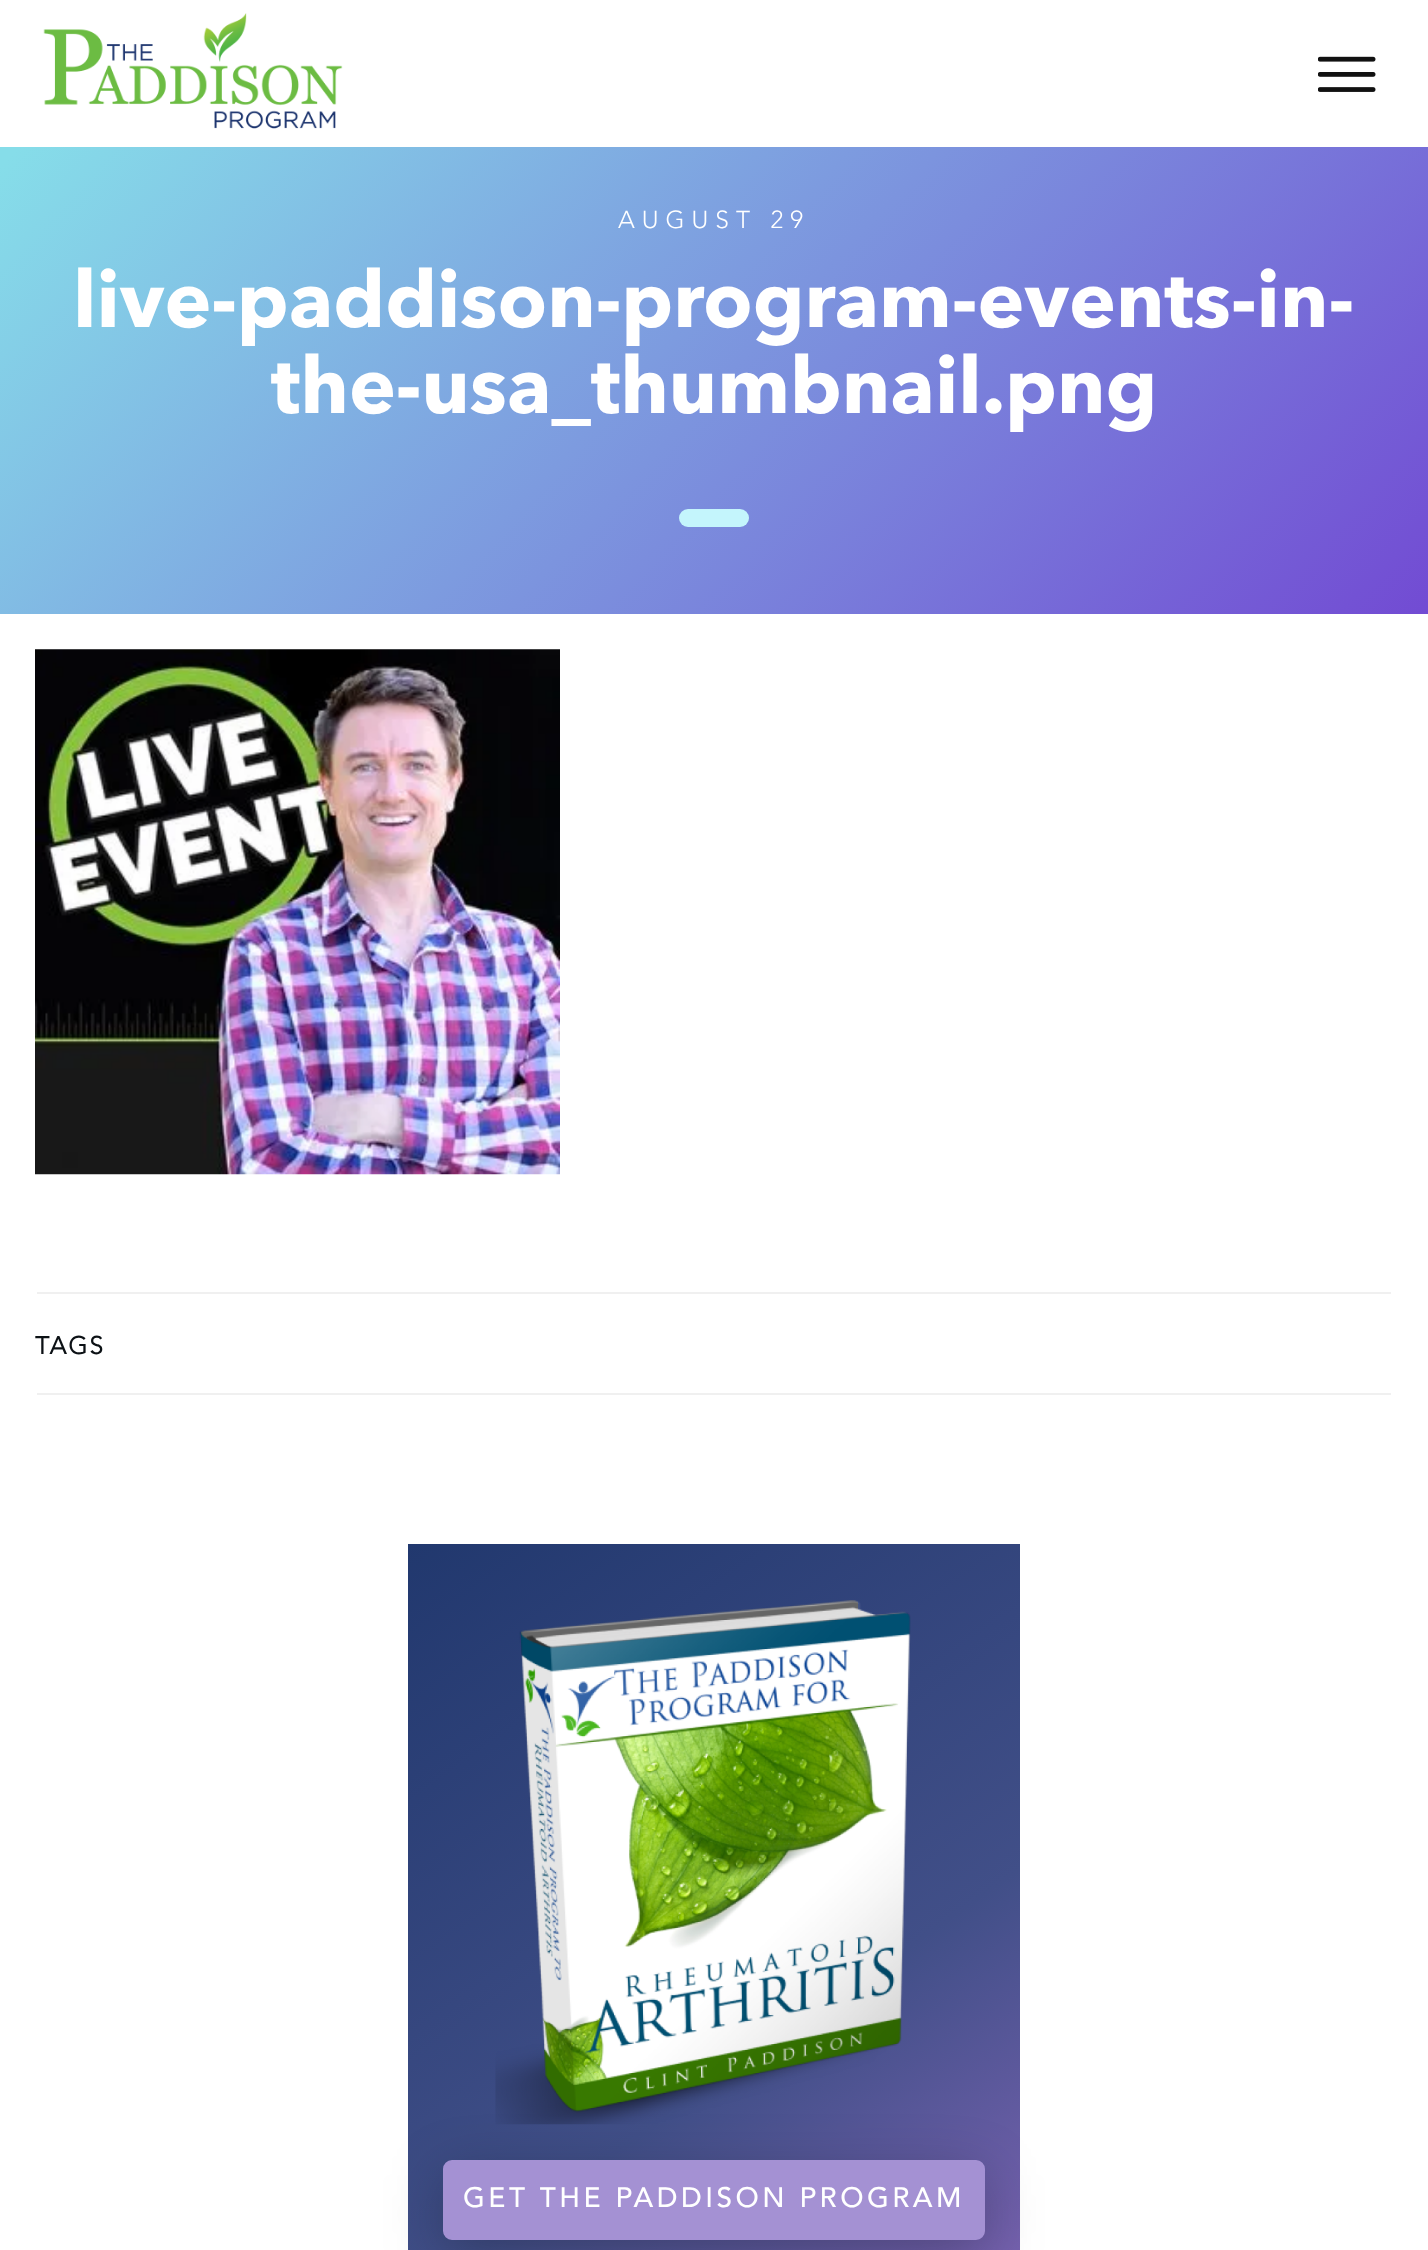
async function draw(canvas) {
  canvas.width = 1428
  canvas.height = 2250
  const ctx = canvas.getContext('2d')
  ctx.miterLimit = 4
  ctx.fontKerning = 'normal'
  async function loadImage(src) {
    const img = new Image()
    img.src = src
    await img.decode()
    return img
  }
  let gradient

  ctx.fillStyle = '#fff'
  ctx.fillRect(0, 0, 1428, 2250)
  ctx.drawImage(await loadImage('image0.png'), 43, 13, 300, 116)
  ctx.drawImage(await loadImage('image1.png'), 1318, 56, 58, 36)
  gradient = ctx.createLinearGradient(216, -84, 1212, 845)
  gradient.addColorStop(0.01, '#86dde9')
  gradient.addColorStop(1, '#724bd3')
  gradient.addColorStop(1, '#bbadde')
  ctx.fillStyle = gradient
  ctx.fillRect(0, 147, 1428, 467)
  ctx.letterSpacing = '7px'
  ctx.font = '300 24.5px Avenir'
  ctx.fillStyle = '#fff'
  ctx.fillText('AUGUST 29', 618, 228)
  ctx.letterSpacing = '0px'
  ctx.font = 'bold 78.75px Avenir Next'
  ctx.fillText('live-paddison-program-events-in-', 73, 327)
  ctx.fillText('the-usa_thumbnail.png', 271, 413)
  ctx.fillStyle = '#c4f5fc'
  ctx.beginPath()
  ctx.roundRect(679, 509, 70, 18, 9)
  ctx.fill()
  ctx.drawImage(await loadImage('image2.png'), 35, 649, 525, 526)
  ctx.fillStyle = '#f0f0f0'
  ctx.fillRect(37, 1292, 1354, 2)
  ctx.letterSpacing = '2px'
  ctx.font = 'bold 24.5px Avenir'
  ctx.fillStyle = '#0c1115'
  ctx.fillText('TAGS', 35, 1354)
  ctx.fillStyle = '#f0f0f0'
  ctx.fillRect(37, 1393, 1354, 2)
  gradient = ctx.createLinearGradient(441, 1520, 987, 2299)
  gradient.addColorStop(0, '#21386e')
  gradient.addColorStop(0.65, '#414f88')
  gradient.addColorStop(1, '#7862b0')
  ctx.fillStyle = gradient
  ctx.fillRect(408, 1544, 612, 706)
  ctx.fillStyle = '#0000003d'
  ctx.filter = 'blur(28px)'
  ctx.beginPath()
  ctx.roundRect(443, 2174, 542, 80, 9)
  ctx.fill()
  ctx.filter = 'none'
  ctx.drawImage(await loadImage('image3.png'), 495, 1600, 416, 525)
  ctx.fillStyle = '#a491d3'
  ctx.fillRect(447, 2164, 534, 72)
  ctx.beginPath()
  ctx.roundRect(445, 2162, 538, 76, 7)
  ctx.strokeStyle = '#a491d3'
  ctx.lineWidth = 4
  ctx.stroke()
  ctx.letterSpacing = '3.5px'
  ctx.font = '500 28px Avenir'
  ctx.fillStyle = '#fff'
  ctx.fillText('GET THE PADDISON PROGRAM', 463, 2207)
}

draw(document.querySelector('canvas'))
